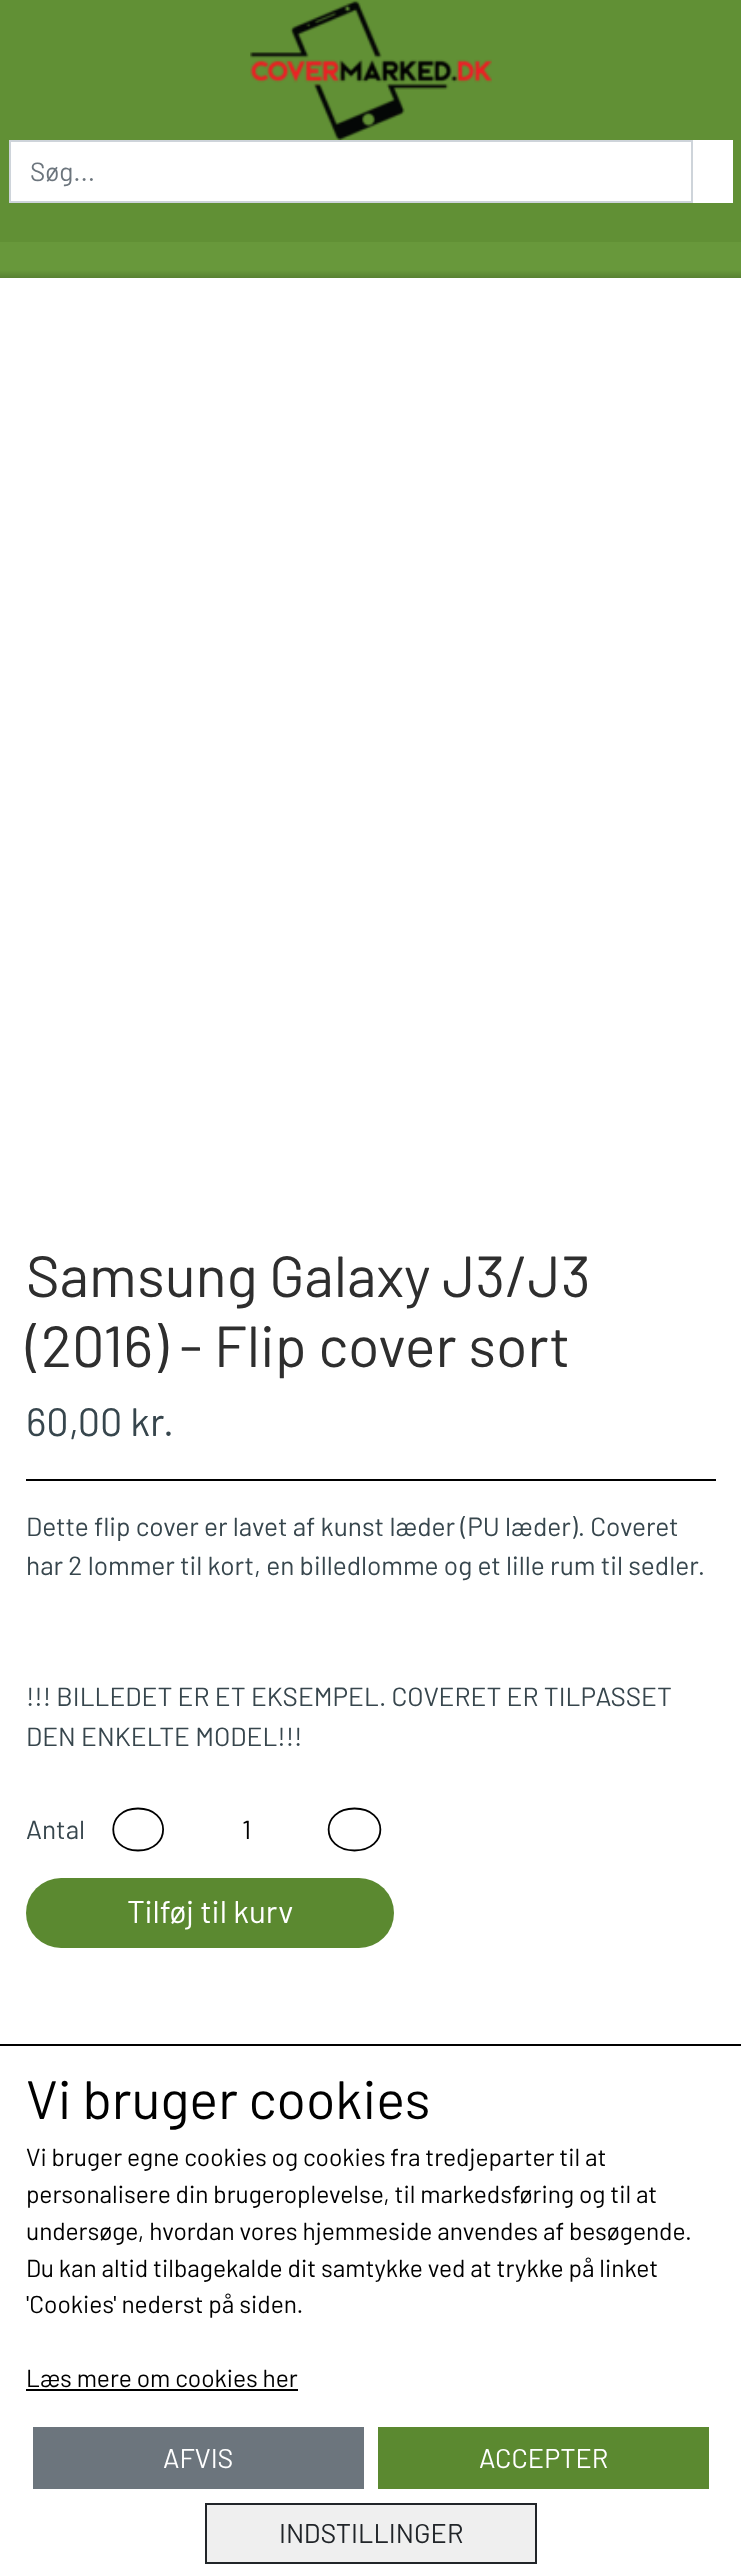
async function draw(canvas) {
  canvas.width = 741
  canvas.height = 2575
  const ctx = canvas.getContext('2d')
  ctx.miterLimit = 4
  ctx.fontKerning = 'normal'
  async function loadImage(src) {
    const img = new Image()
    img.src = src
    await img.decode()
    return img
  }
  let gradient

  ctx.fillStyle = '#fff'
  ctx.fillRect(0, 0, 741, 2575)
  ctx.fillStyle = '#619035'
  ctx.fillRect(0, 0, 741, 242)
  ctx.drawImage(await loadImage('image0.png'), 250, 0, 242, 140)
  ctx.fillStyle = '#fff'
  ctx.beginPath()
  ctx.rect(10, 141, 682, 61)
  ctx.fill()
  ctx.strokeStyle = '#ced4da'
  ctx.lineWidth = 2
  ctx.stroke()
  ctx.font = '26.25px Barlow'
  ctx.fillStyle = '#6c757d'
  ctx.fillText('Søg...', 30, 181)
  ctx.fillStyle = '#fff'
  ctx.fillRect(693, 140, 40, 63)
  ctx.fillStyle = '#68983b'
  ctx.fillRect(0, 242, 741, 28)
  gradient = ctx.createLinearGradient(371, 278, 371, 270)
  gradient.addColorStop(0, '#588132')
  gradient.addColorStop(1, '#68983b')
  ctx.fillStyle = gradient
  ctx.fillRect(0, 270, 741, 8)
  ctx.font = '57.75px Barlow'
  ctx.fillStyle = '#2e2e2e'
  ctx.fillText('Samsung Galaxy J3/J3', 26, 1297)
  ctx.fillText('(2016) - Flip cover sort', 26, 1367)
  ctx.font = '39.5px Barlow'
  ctx.fillStyle = '#37464d'
  ctx.fillText('60,00 kr.', 26, 1436)
  ctx.fillStyle = '#000'
  ctx.fillRect(26, 1479, 690, 2)
  ctx.font = '26.25px Barlow'
  ctx.fillStyle = '#37464d'
  ctx.fillText('Dette flip cover er lavet af kunst læder (PU læder). Coveret', 26, 1536)
  ctx.fillText('har 2 lommer til kort, en billedlomme og et lille rum til sedler.', 26, 1575)
  ctx.fillText('!!! BILLEDET ER ET EKSEMPEL. COVERET ER TILPASSET', 26, 1706)
  ctx.fillText('DEN ENKELTE MODEL!!!', 26, 1746)
  ctx.fillText('Antal', 26, 1839)
  ctx.beginPath()
  ctx.moveTo(138, 1808.5)
  ctx.bezierCurveTo(171.5, 1808.5, 171.5, 1850.5, 138, 1850.5)
  ctx.bezierCurveTo(105, 1850.5, 105, 1808.5, 138, 1808.5)
  ctx.closePath()
  ctx.strokeStyle = '#000'
  ctx.lineWidth = 1.8
  ctx.stroke()
  ctx.fillStyle = '#000'
  ctx.fillText('1', 242, 1839)
  ctx.beginPath()
  ctx.moveTo(354.5, 1808.5)
  ctx.bezierCurveTo(389, 1808.5, 389, 1850.5, 354.5, 1850.5)
  ctx.bezierCurveTo(320, 1850.5, 320, 1808.5, 354.5, 1808.5)
  ctx.closePath()
  ctx.stroke()
  ctx.fillStyle = '#5b8930'
  ctx.beginPath()
  ctx.roundRect(26, 1878, 368, 70, 35)
  ctx.fill()
  ctx.font = '31.5px Barlow'
  ctx.fillStyle = '#fff'
  ctx.fillText('Tilføj til kurv', 127, 1923)
  ctx.fillStyle = '#000'
  ctx.fillRect(0, 2044, 741, 2)
  ctx.font = '54px Barlow'
  ctx.fillText('Vi bruger cookies', 26, 2119)
  ctx.font = '24.5px Barlow'
  ctx.fillText('Vi bruger egne cookies og cookies fra tredjeparter til at', 26, 2166)
  ctx.fillText('personalisere din brugeroplevelse, til markedsføring og til at', 26, 2203)
  ctx.fillText('undersøge, hvordan vores hjemmeside anvendes af besøgende.', 26, 2240)
  ctx.fillText('Du kan altid tilbagekalde dit samtykke ved at trykke på linket', 26, 2277)
  ctx.fillText('\'Cookies\' nederst på siden.', 26, 2313)
  ctx.fillText('Læs mere om cookies her', 26, 2387)
  ctx.fillRect(26, 2389, 272, 2)
  ctx.fillStyle = '#6c757d'
  ctx.fillRect(33, 2427, 331, 62)
  ctx.font = '27px Barlow'
  ctx.fillStyle = '#fff'
  ctx.fillText('AFVIS', 163, 2468)
  ctx.fillStyle = '#5b8930'
  ctx.fillRect(378, 2427, 331, 62)
  ctx.fillStyle = '#fff'
  ctx.fillText('ACCEPTER', 479, 2468)
  ctx.fillStyle = '#efefef'
  ctx.beginPath()
  ctx.rect(206, 2504, 330, 59)
  ctx.fill()
  ctx.strokeStyle = '#212529'
  ctx.lineWidth = 2
  ctx.stroke()
  ctx.fillStyle = '#212529'
  ctx.fillText('INDSTILLINGER', 279, 2543)
}

draw(document.querySelector('canvas'))
